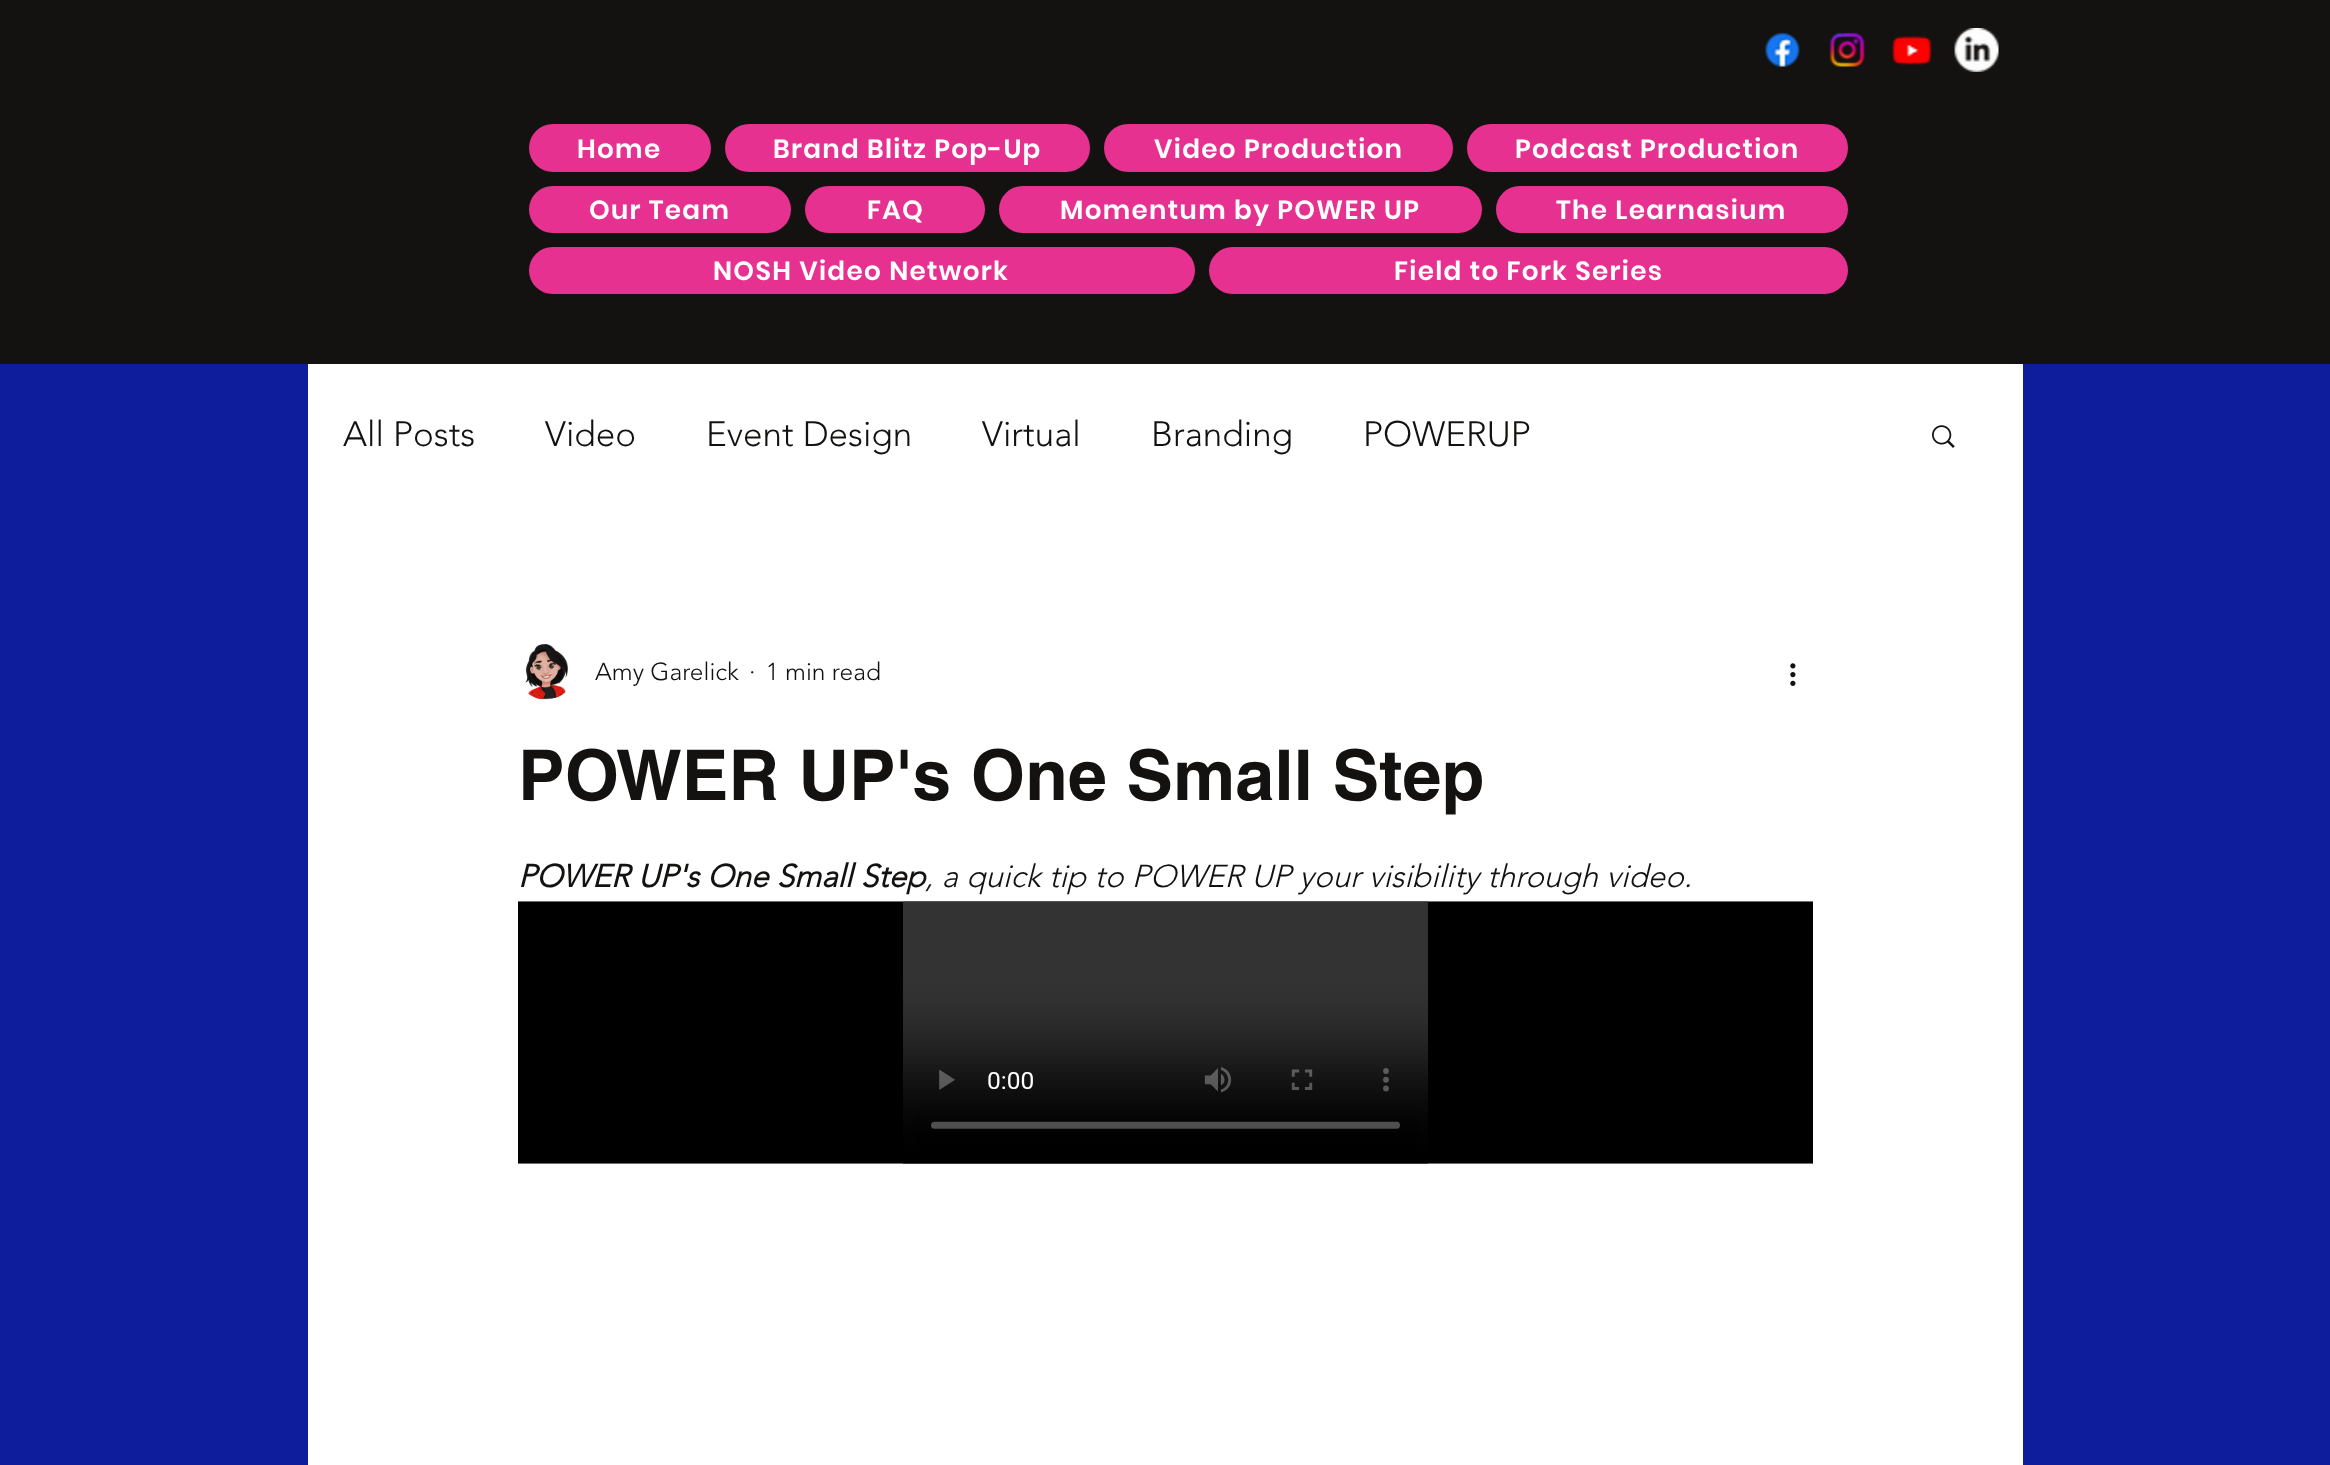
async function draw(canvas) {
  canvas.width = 2330
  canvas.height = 1465
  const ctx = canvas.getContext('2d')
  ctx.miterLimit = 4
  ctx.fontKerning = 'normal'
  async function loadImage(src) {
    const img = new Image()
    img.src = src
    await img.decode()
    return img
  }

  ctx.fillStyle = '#0e1d9b'
  ctx.fillRect(0, 0, 2330, 1465)
  ctx.fillStyle = '#131210'
  ctx.fillRect(0, 0, 2330, 364)
  ctx.drawImage(await loadImage('image0.png'), 1764, 32, 36, 35)
  ctx.drawImage(await loadImage('image1.png'), 1829, 32, 36, 35)
  ctx.drawImage(await loadImage('image2.png'), 1891, 36, 42, 30)
  ctx.drawImage(await loadImage('image3.png'), 1954, 28, 45, 44)
  ctx.fillStyle = '#e73191'
  ctx.beginPath()
  ctx.roundRect(529, 124, 182, 48, 24)
  ctx.fill()
  ctx.letterSpacing = '1.3px'
  ctx.font = '600 26.25px Poppins'
  ctx.fillStyle = '#fff'
  ctx.fillText('Home', 577, 158)
  ctx.fillStyle = '#e73191'
  ctx.beginPath()
  ctx.roundRect(725, 124, 365, 48, 24)
  ctx.fill()
  ctx.fillStyle = '#fff'
  ctx.fillText('Brand Blitz Pop-Up', 773, 158)
  ctx.fillStyle = '#e73191'
  ctx.beginPath()
  ctx.roundRect(1104, 124, 349, 48, 24)
  ctx.fill()
  ctx.fillStyle = '#fff'
  ctx.fillText('Video Production', 1154, 158)
  ctx.fillStyle = '#e73191'
  ctx.beginPath()
  ctx.roundRect(1467, 124, 381, 48, 24)
  ctx.fill()
  ctx.fillStyle = '#fff'
  ctx.fillText('Podcast Production', 1515, 158)
  ctx.fillStyle = '#e73191'
  ctx.beginPath()
  ctx.roundRect(529, 186, 262, 47, 23.5)
  ctx.fill()
  ctx.fillStyle = '#fff'
  ctx.fillText('Our Team', 589, 219)
  ctx.fillStyle = '#e73191'
  ctx.beginPath()
  ctx.roundRect(805, 186, 180, 47, 23.5)
  ctx.fill()
  ctx.fillStyle = '#fff'
  ctx.fillText('FAQ', 867, 219)
  ctx.fillStyle = '#e73191'
  ctx.beginPath()
  ctx.roundRect(999, 186, 483, 47, 23.5)
  ctx.fill()
  ctx.fillStyle = '#fff'
  ctx.fillText('Momentum by POWER UP', 1060, 219)
  ctx.fillStyle = '#e73191'
  ctx.beginPath()
  ctx.roundRect(1496, 186, 352, 47, 23.5)
  ctx.fill()
  ctx.fillStyle = '#fff'
  ctx.fillText('The Learnasium', 1556, 219)
  ctx.fillStyle = '#e73191'
  ctx.beginPath()
  ctx.roundRect(529, 247, 666, 47, 23.5)
  ctx.fill()
  ctx.fillStyle = '#fff'
  ctx.fillText('NOSH Video Network', 713, 280)
  ctx.fillStyle = '#e73191'
  ctx.beginPath()
  ctx.roundRect(1209, 247, 639, 47, 23.5)
  ctx.fill()
  ctx.fillStyle = '#fff'
  ctx.fillText('Field to Fork Series', 1394, 280)
  ctx.fillRect(308, 364, 1715, 1101)
  ctx.letterSpacing = '0px'
  ctx.font = '300 35px "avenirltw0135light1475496"'
  ctx.fillStyle = '#131210'
  ctx.fillText('All Posts', 343, 446)
  ctx.fillText('Video', 545, 446)
  ctx.fillText('Event Design', 706, 446)
  ctx.fillText('Virtual', 982, 446)
  ctx.fillText('Branding', 1151, 446)
  ctx.fillText('POWERUP', 1363, 446)
  ctx.drawImage(await loadImage('image4.png'), 1932, 425, 23, 23)
  ctx.drawImage(await loadImage('image5.png'), 525, 644, 43, 56)
  ctx.font = '300 24.5px "avenirltw0135light1475496"'
  ctx.fillText('Amy Garelick', 595, 680)
  ctx.fillText('·', 749, 680)
  ctx.fillText('1 min read', 766, 680)
  ctx.drawImage(await loadImage('image6.png'), 1790, 663, 6, 23)
  ctx.font = 'bold 70px helvetica'
  ctx.fillText('POWER UP\'s One Small Step', 518, 800)
  ctx.font = 'italic bold 31.5px "avenirltw0135light1475496"'
  ctx.fillText('POWER UP\'s One Small Step', 518, 887)
  ctx.font = 'italic 300 31.5px "avenirltw0135light1475496"'
  ctx.fillText(', a quick tip to POWER UP your visibility through video.', 925, 887)
  ctx.drawImage(await loadImage('image7.png'), 518, 901, 1295, 263)
}

draw(document.querySelector('canvas'))
